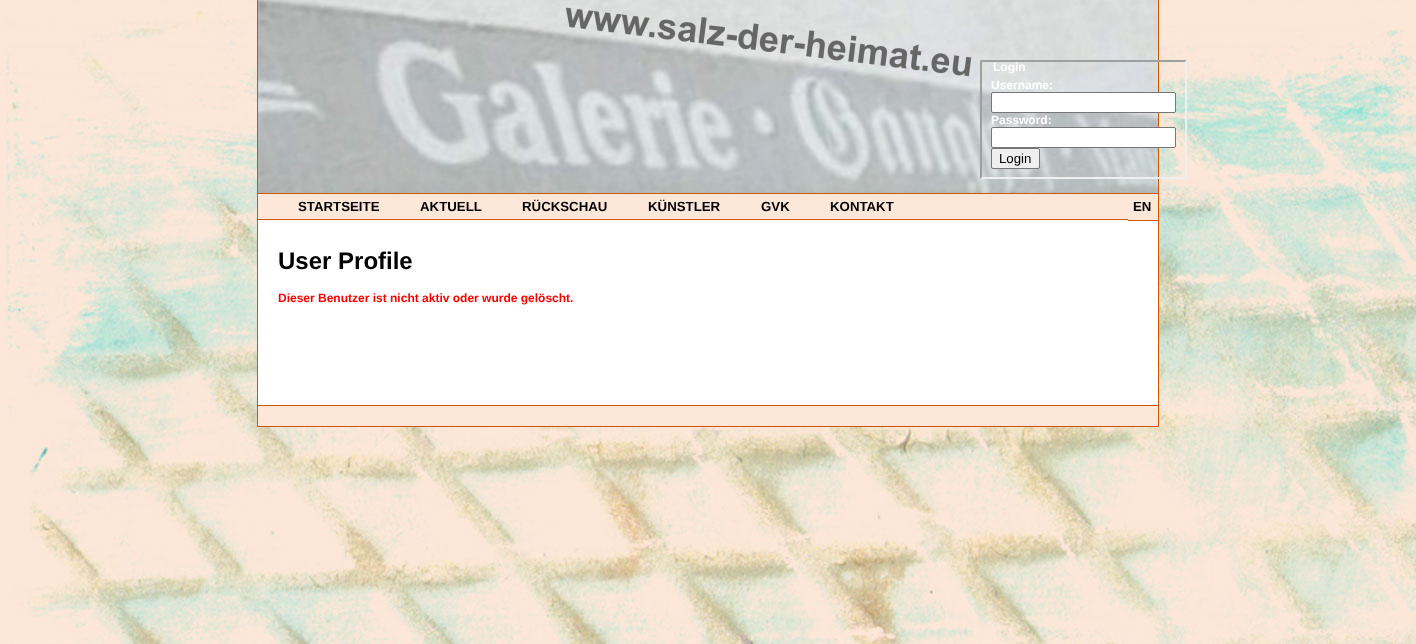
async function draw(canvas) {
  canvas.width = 1416
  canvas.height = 644
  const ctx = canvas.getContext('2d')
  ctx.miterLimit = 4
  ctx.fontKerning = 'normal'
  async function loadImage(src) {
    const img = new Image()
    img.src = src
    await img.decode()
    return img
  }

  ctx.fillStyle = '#fff'
  ctx.fillRect(0, 0, 1416, 644)
  ctx.drawImage(await loadImage('image0.png'), 0, 427, 1416, 217)
  ctx.drawImage(await loadImage('image1.png'), 0, 0, 1416, 427)
  ctx.fillRect(258, 220, 900, 185)
  ctx.fillStyle = '#cf5500'
  ctx.fillRect(1158, 0, 1, 427)
  ctx.fillRect(257, 0, 1, 427)
  ctx.drawImage(await loadImage('image2.png'), 258, 0, 900, 193)
  ctx.fillStyle = '#9f9f9f'
  ctx.beginPath()
  ctx.moveTo(980, 60)
  ctx.lineTo(1187, 60)
  ctx.lineTo(1185, 62)
  ctx.lineTo(982, 62)
  ctx.closePath()
  ctx.fill()
  ctx.fillStyle = '#efefef'
  ctx.beginPath()
  ctx.moveTo(1187, 60)
  ctx.lineTo(1187, 179)
  ctx.lineTo(1185, 177)
  ctx.lineTo(1185, 62)
  ctx.closePath()
  ctx.fill()
  ctx.beginPath()
  ctx.moveTo(1187, 179)
  ctx.lineTo(980, 179)
  ctx.lineTo(982, 177)
  ctx.lineTo(1185, 177)
  ctx.closePath()
  ctx.fill()
  ctx.fillStyle = '#9f9f9f'
  ctx.beginPath()
  ctx.moveTo(980, 179)
  ctx.lineTo(980, 60)
  ctx.lineTo(982, 62)
  ctx.lineTo(982, 177)
  ctx.closePath()
  ctx.fill()
  ctx.font = 'bold 12px Liberation Sans'
  ctx.fillStyle = '#fff'
  ctx.fillText('Login', 993, 71)
  ctx.fillText('Username:', 991, 89)
  ctx.beginPath()
  ctx.roundRect(991.5, 92.5, 184, 20, 1.5)
  ctx.fill()
  ctx.strokeStyle = '#767676'
  ctx.stroke()
  ctx.fillText('Password:', 991, 124)
  ctx.beginPath()
  ctx.roundRect(991.5, 127.5, 184, 20, 1.5)
  ctx.fill()
  ctx.stroke()
  ctx.fillStyle = '#efefef'
  ctx.beginPath()
  ctx.roundRect(991.5, 148.5, 48, 20, 1.5)
  ctx.fill()
  ctx.stroke()
  ctx.font = '13.25px Liberation Sans'
  ctx.fillStyle = '#000'
  ctx.fillText('Login', 999, 163)
  ctx.fillStyle = '#fde7d8'
  ctx.fillRect(258, 194, 870, 25)
  ctx.fillStyle = '#cf5500'
  ctx.fillRect(258, 193, 900, 1)
  ctx.fillRect(258, 219, 870, 1)
  ctx.font = 'bold 13.25px Liberation Sans'
  ctx.fillStyle = '#000'
  ctx.fillText('STARTSEITE', 298, 211)
  ctx.fillText('AKTUELL', 420, 211)
  ctx.fillText('RÜCKSCHAU', 522, 211)
  ctx.fillText('KÜNSTLER', 648, 211)
  ctx.fillText('GVK', 761, 211)
  ctx.fillText('KONTAKT', 830, 211)
  ctx.fillStyle = '#fde7d8'
  ctx.fillRect(1128, 194, 30, 26)
  ctx.fillStyle = '#cf5500'
  ctx.fillRect(1128, 220, 30, 1)
  ctx.fillStyle = '#000'
  ctx.fillText('EN', 1133, 211)
  ctx.font = 'bold 24px Liberation Sans'
  ctx.fillText('User Profile', 278, 269)
  ctx.font = 'bold 12px Liberation Sans'
  ctx.fillStyle = '#f00'
  ctx.fillText('Dieser Benutzer ist nicht aktiv oder wurde gelöscht.', 278, 302)
  ctx.fillStyle = '#fde7d8'
  ctx.fillRect(258, 406, 900, 20)
  ctx.fillStyle = '#cf5500'
  ctx.fillRect(258, 405, 900, 1)
  ctx.fillRect(258, 426, 900, 1)
}

draw(document.querySelector('canvas'))
